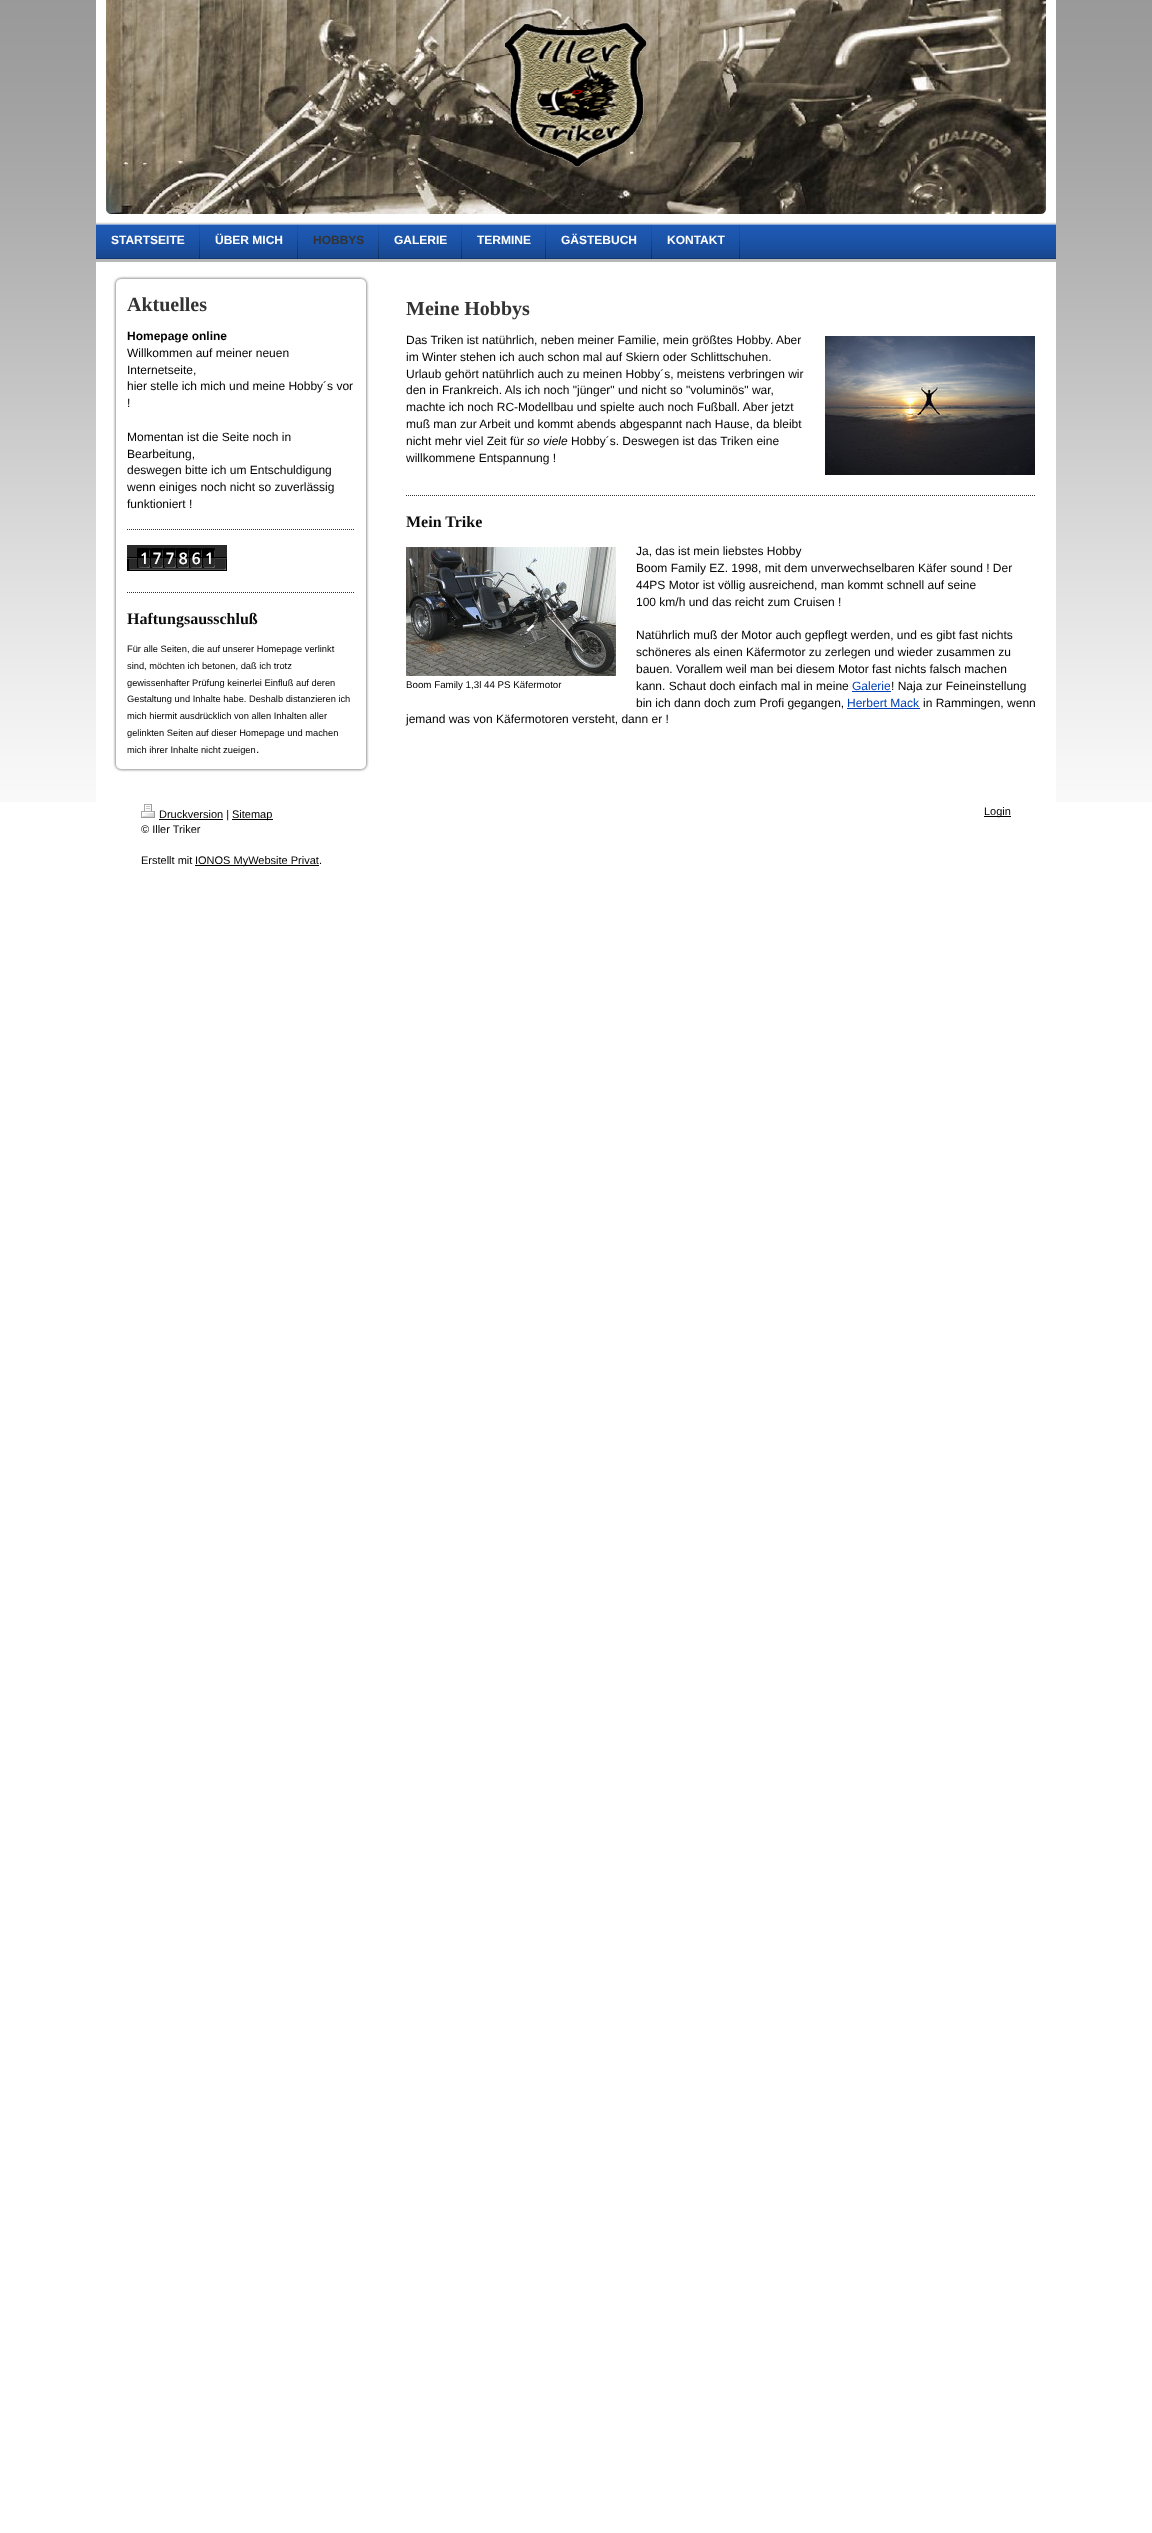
async function draw(canvas) {
  canvas.width = 1152
  canvas.height = 2533
  const ctx = canvas.getContext('2d')
  ctx.miterLimit = 4
  ctx.fontKerning = 'normal'
  async function loadImage(src) {
    const img = new Image()
    img.src = src
    await img.decode()
    return img
  }

  ctx.fillStyle = '#fff'
  ctx.fillRect(0, 0, 1152, 2533)
  ctx.drawImage(await loadImage('image0.png'), 0, 0, 1152, 802)
  ctx.fillRect(96, 0, 960, 802)
  ctx.drawImage(await loadImage('image1.png'), 106, 0, 940, 214)
  ctx.drawImage(await loadImage('image2.png'), 504, 22, 143, 145)
  ctx.drawImage(await loadImage('image3.png'), 106, 209, 5, 5)
  ctx.drawImage(await loadImage('image4.png'), 1041, 209, 5, 5)
  ctx.drawImage(await loadImage('image5.png'), 96, 222, 960, 2)
  ctx.fillStyle = '#1e5ab5'
  ctx.fillRect(96, 224, 960, 35)
  ctx.drawImage(await loadImage('image6.png'), 96, 224, 960, 35)
  ctx.drawImage(await loadImage('image7.png'), 199, 224, 1, 35)
  ctx.font = 'bold 12px Liberation Sans'
  ctx.fillStyle = '#fff'
  ctx.fillText('STARTSEITE', 111, 244)
  ctx.drawImage(await loadImage('image7.png'), 297, 224, 1, 35)
  ctx.fillText('ÜBER MICH', 215, 244)
  ctx.drawImage(await loadImage('image7.png'), 378, 224, 1, 35)
  ctx.fillStyle = '#333'
  ctx.fillText('HOBBYS', 313, 244)
  ctx.drawImage(await loadImage('image7.png'), 461, 224, 1, 35)
  ctx.fillStyle = '#fff'
  ctx.fillText('GALERIE', 394, 244)
  ctx.drawImage(await loadImage('image7.png'), 545, 224, 1, 35)
  ctx.fillText('TERMINE', 477, 244)
  ctx.drawImage(await loadImage('image7.png'), 651, 224, 1, 35)
  ctx.fillText('GÄSTEBUCH', 561, 244)
  ctx.drawImage(await loadImage('image7.png'), 739, 224, 1, 35)
  ctx.fillText('KONTAKT', 667, 244)
  ctx.fillStyle = '#b7b7b7'
  ctx.fillRect(96, 259, 960, 3)
  ctx.drawImage(await loadImage('image8.png'), 113, 276, 256, 9)
  ctx.drawImage(await loadImage('image9.png'), 113, 285, 256, 478)
  ctx.font = 'bold 20px Liberation Serif'
  ctx.fillStyle = '#333'
  ctx.fillText('Aktuelles', 127, 311)
  ctx.font = 'bold 12px Liberation Sans'
  ctx.fillStyle = '#000'
  ctx.fillText('Homepage online', 127, 340)
  ctx.font = '12px Liberation Sans'
  ctx.fillText('Willkommen auf meiner neuen', 127, 357)
  ctx.fillText('Internetseite,', 127, 374)
  ctx.fillText('hier stelle ich mich und meine Hobby´s vor', 127, 390)
  ctx.fillText('!', 127, 407)
  ctx.fillText('Momentan ist die Seite noch in', 127, 441)
  ctx.fillText('Bearbeitung,', 127, 458)
  ctx.fillText('deswegen bitte ich um Entschuldigung', 127, 474)
  ctx.fillText('wenn einiges noch nicht so zuverlässig', 127, 491)
  ctx.fillText('funktioniert !', 127, 508)
  ctx.beginPath()
  ctx.moveTo(127, 529.5)
  ctx.lineTo(355, 529.5)
  ctx.strokeStyle = '#333'
  ctx.setLineDash([1, 1])
  ctx.stroke()
  ctx.drawImage(await loadImage('image10.png'), 127, 545, 10, 26)
  ctx.drawImage(await loadImage('image11.png'), 137, 545, 13, 26)
  ctx.drawImage(await loadImage('image12.png'), 150, 545, 13, 26)
  ctx.drawImage(await loadImage('image12.png'), 163, 545, 13, 26)
  ctx.drawImage(await loadImage('image13.png'), 176, 545, 13, 26)
  ctx.drawImage(await loadImage('image14.png'), 189, 545, 13, 26)
  ctx.drawImage(await loadImage('image11.png'), 202, 545, 13, 26)
  ctx.drawImage(await loadImage('image15.png'), 215, 545, 12, 26)
  ctx.beginPath()
  ctx.moveTo(127, 592.5)
  ctx.lineTo(355, 592.5)
  ctx.stroke()
  ctx.font = 'bold 16px Liberation Serif'
  ctx.fillStyle = '#0c0c0c'
  ctx.fillText('Haftungsausschluß', 127, 624)
  ctx.font = '9.3px Liberation Sans'
  ctx.fillStyle = '#000'
  ctx.fillText('Für alle Seiten, die auf unserer Homepage verlinkt', 127, 652)
  ctx.fillText('sind, möchten ich betonen, daß ich trotz', 127, 669)
  ctx.fillText('gewissenhafter Prüfung keinerlei Einfluß auf deren', 127, 686)
  ctx.fillText('Gestaltung und Inhalte habe. Deshalb distanzieren ich', 127, 702)
  ctx.fillText('mich hiermit ausdrücklich von allen Inhalten aller', 127, 719)
  ctx.fillText('gelinkten Seiten auf dieser Homepage und machen', 127, 736)
  ctx.fillText('mich ihrer Inhalte nicht zueigen', 127, 753)
  ctx.font = '12px Liberation Sans'
  ctx.fillText('.', 256, 753)
  ctx.drawImage(await loadImage('image16.png'), 113, 763, 256, 9)
  ctx.font = 'bold 20px Liberation Serif'
  ctx.fillStyle = '#333'
  ctx.fillText('Meine Hobbys', 406, 315)
  ctx.font = '12px Liberation Sans'
  ctx.fillStyle = '#000'
  ctx.fillText('Das Triken ist natührlich, neben meiner Familie, mein größtes Hobby. Aber', 406, 344)
  ctx.fillText('im Winter stehen ich auch schon mal auf Skiern oder Schlittschuhen.', 406, 361)
  ctx.fillText('Urlaub gehört natührlich auch zu meinen Hobby´s, meistens verbringen wir', 406, 378)
  ctx.fillText('den in Frankreich. Als ich noch "jünger" und nicht so "voluminös" war,', 406, 394)
  ctx.fillText('machte ich noch RC-Modellbau und spielte auch noch Fußball. Aber jetzt', 406, 411)
  ctx.fillText('muß man zur Arbeit und kommt abends abgespannt nach Hause, da bleibt', 406, 428)
  ctx.fillText('nicht mehr viel Zeit für', 406, 445)
  ctx.font = 'italic 12px Liberation Sans'
  ctx.fillText('so viele', 527, 445)
  ctx.font = '12px Liberation Sans'
  ctx.fillText('Hobby´s. Deswegen ist das Triken eine', 571, 445)
  ctx.fillText('willkommene Entspannung !', 406, 462)
  ctx.drawImage(await loadImage('image17.png'), 825, 336, 210, 139)
  ctx.beginPath()
  ctx.moveTo(406, 495.5)
  ctx.lineTo(1036, 495.5)
  ctx.stroke()
  ctx.font = 'bold 16px Liberation Serif'
  ctx.fillStyle = '#0c0c0c'
  ctx.fillText('Mein Trike', 406, 527)
  ctx.font = '12px Liberation Sans'
  ctx.fillStyle = '#000'
  ctx.fillText('Ja, das ist mein liebstes Hobby', 636, 555)
  ctx.fillText('Boom Family EZ. 1998, mit dem unverwechselbaren Käfer sound ! Der', 636, 572)
  ctx.fillText('44PS Motor ist völlig ausreichend, man kommt schnell auf seine', 636, 589)
  ctx.fillText('100 km/h und das reicht zum Cruisen !', 636, 606)
  ctx.fillText('Natührlich muß der Motor auch gepflegt werden, und es gibt fast nichts', 636, 639)
  ctx.fillText('schöneres als einen Käfermotor zu zerlegen und wieder zusammen zu', 636, 656)
  ctx.fillText('bauen. Vorallem weil man bei diesem Motor fast nichts falsch machen', 636, 673)
  ctx.fillText('kann. Schaut doch einfach mal in meine', 636, 690)
  ctx.fillStyle = '#0040b6'
  ctx.fillText('Galerie', 852, 690)
  ctx.fillRect(852, 691, 39, 1)
  ctx.fillStyle = '#000'
  ctx.fillText('! Naja zur Feineinstellung', 891, 690)
  ctx.fillText('bin ich dann doch zum Profi gegangen,', 636, 707)
  ctx.fillStyle = '#0040b6'
  ctx.fillText('Herbert Mack', 847, 707)
  ctx.fillRect(847, 708, 73, 1)
  ctx.fillStyle = '#000'
  ctx.fillText('in Rammingen, wenn', 923, 707)
  ctx.fillText('jemand was von Käfermotoren versteht, dann er !', 406, 723)
  ctx.drawImage(await loadImage('image18.png'), 406, 547, 210, 129)
  ctx.font = '9.75px Liberation Sans'
  ctx.fillText('Boom Family 1,3l 44 PS Käfermotor', 406, 688)
  ctx.drawImage(await loadImage('image19.png'), 141, 804, 14, 14)
  ctx.fillRect(159, 819, 64, 1)
  ctx.font = '11px Liberation Sans'
  ctx.fillText('Druckversion |', 159, 818)
  ctx.fillRect(232, 819, 41, 1)
  ctx.fillText('Sitemap', 232, 818)
  ctx.fillText('© Iller Triker', 141, 833)
  ctx.fillText('Erstellt mit', 141, 864)
  ctx.fillRect(195, 865, 124, 1)
  ctx.fillText('IONOS MyWebsite Privat.', 195, 864)
  ctx.fillRect(984, 816, 27, 1)
  ctx.fillText('Login', 984, 815)
}

draw(document.querySelector('canvas'))
